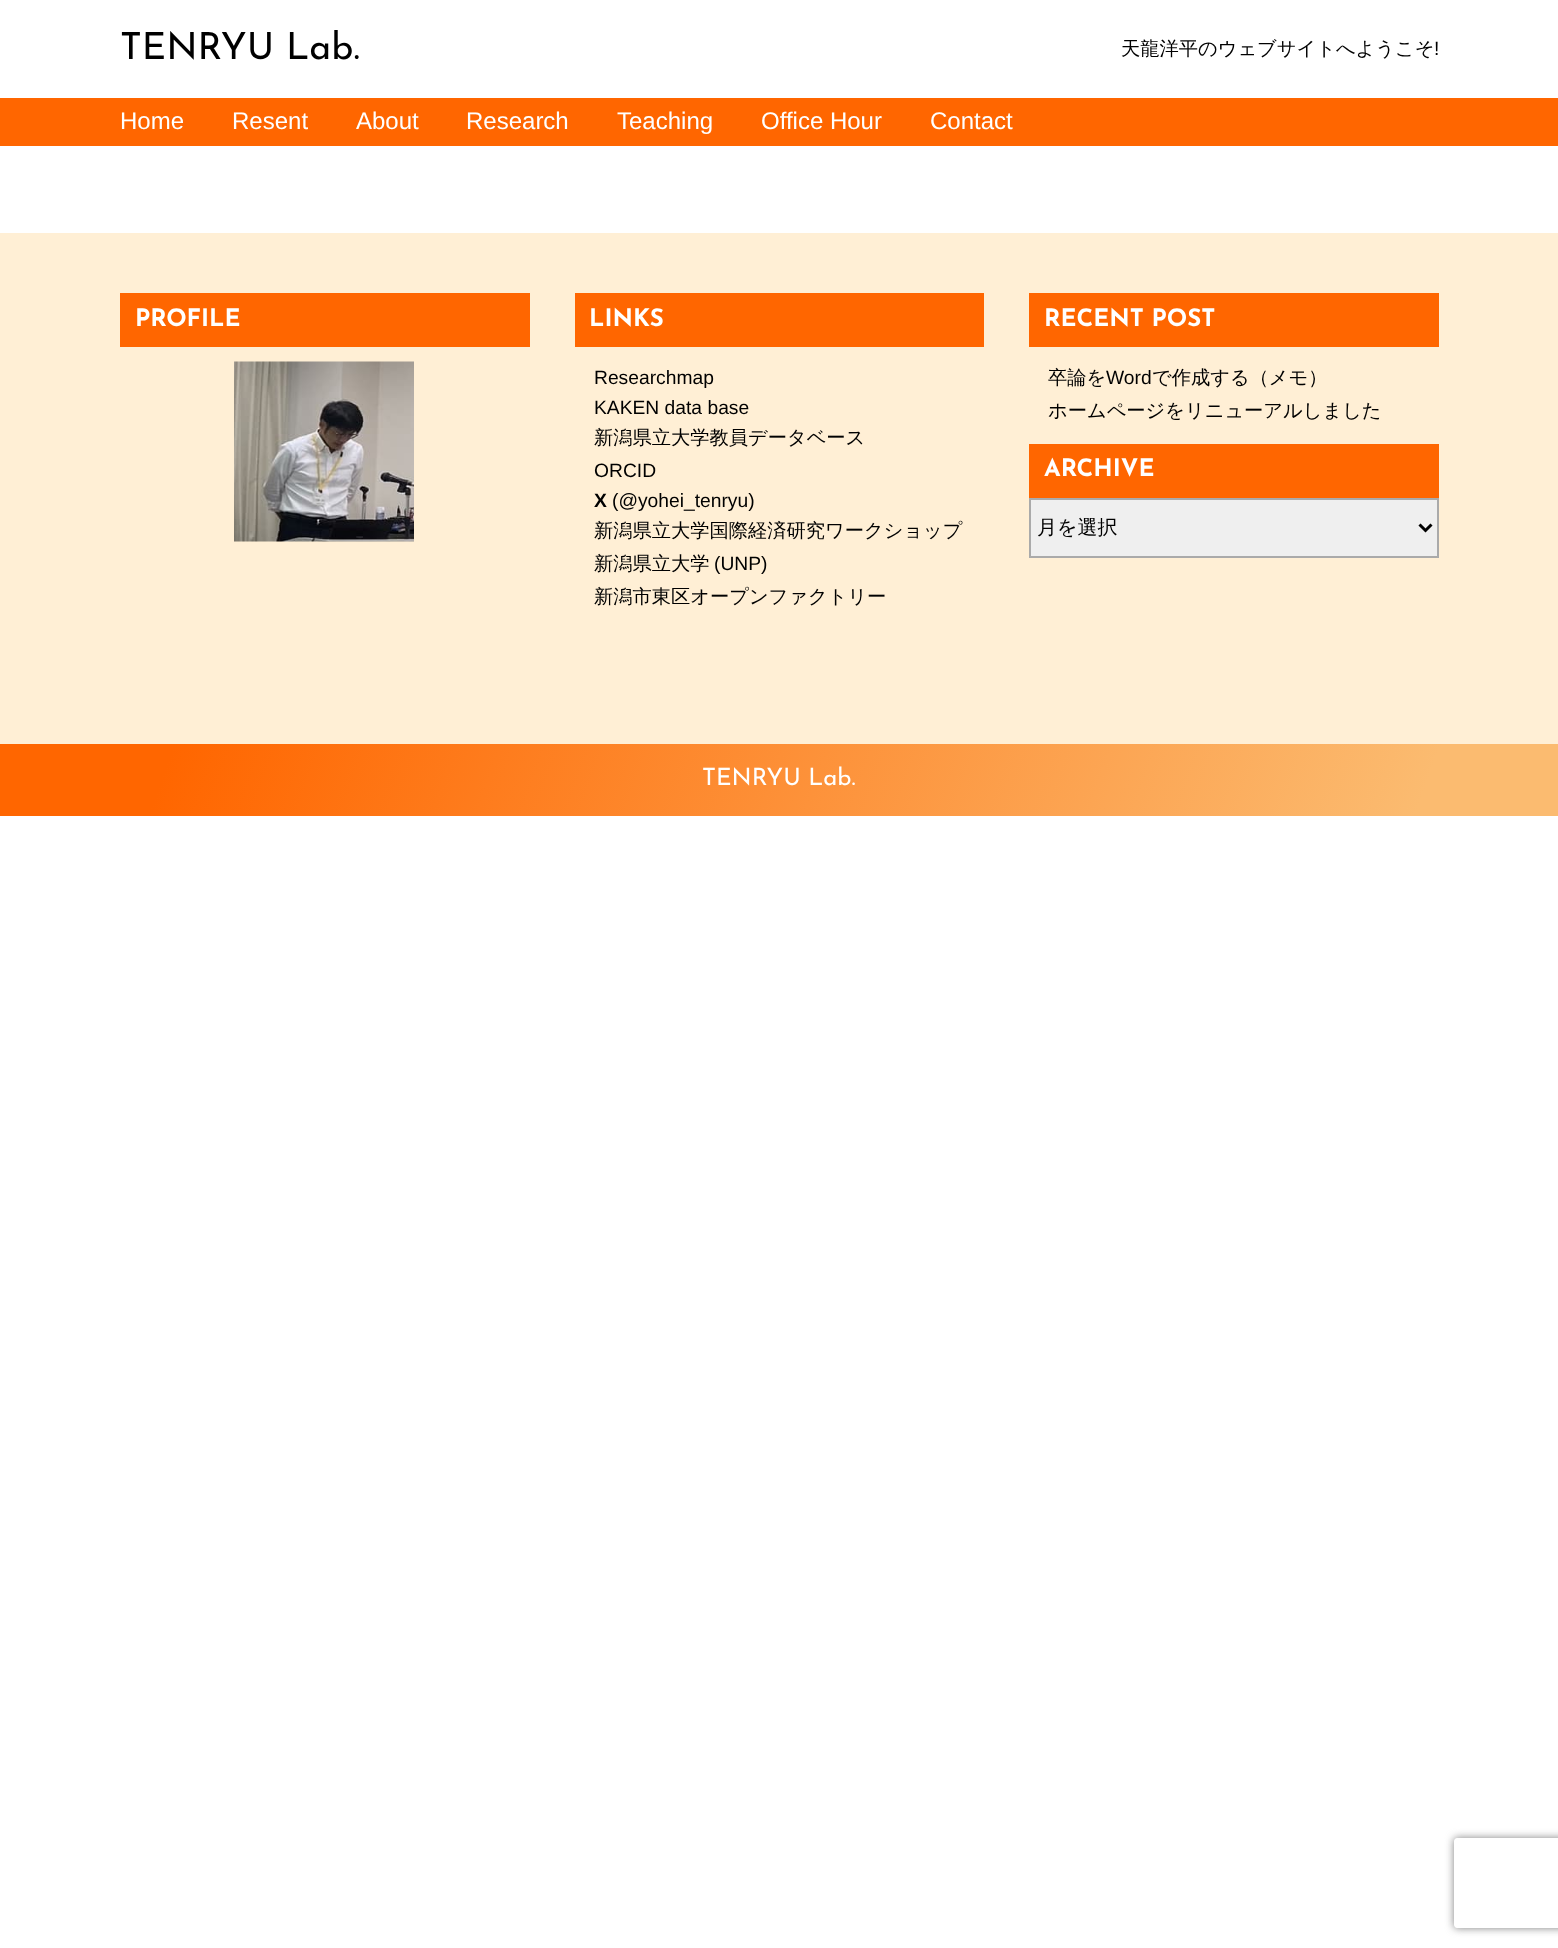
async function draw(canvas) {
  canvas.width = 1558
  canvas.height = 1948
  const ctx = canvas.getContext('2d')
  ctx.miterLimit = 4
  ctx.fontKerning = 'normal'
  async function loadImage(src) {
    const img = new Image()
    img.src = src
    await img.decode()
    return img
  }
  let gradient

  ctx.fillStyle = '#fff'
  ctx.fillRect(0, 0, 1558, 1948)
  ctx.font = '37.5px Josefin Sans'
  ctx.fillStyle = '#000'
  ctx.fillText('TENRYU Lab.', 120, 59)
  ctx.font = '500 19.25px WenQuanYi Zen Hei'
  ctx.fillText('天龍洋平のウェブサイトへようこそ', 1121, 55)
  ctx.font = '19.25px Liberation Sans'
  ctx.fillText('!', 1434, 55)
  ctx.fillStyle = '#f60'
  ctx.fillRect(0, 98, 1558, 48)
  ctx.font = '24px Liberation Sans'
  ctx.fillStyle = '#fff'
  ctx.fillText('Home', 120, 129)
  ctx.fillText('Resent', 232, 129)
  ctx.fillText('About', 356, 129)
  ctx.fillText('Research', 466, 129)
  ctx.fillText('Teaching', 617, 129)
  ctx.fillText('Office Hour', 761, 129)
  ctx.fillText('Contact', 930, 129)
  ctx.fillStyle = '#ffefd5'
  ctx.fillRect(0, 233, 1558, 511)
  ctx.fillStyle = '#f60'
  ctx.fillRect(120, 293, 410, 54)
  ctx.font = 'bold 24px Josefin Sans'
  ctx.fillStyle = '#fff'
  ctx.fillText('PROFILE', 135, 326)
  ctx.drawImage(await loadImage('image0.png'), 234, 361, 180, 181)
  ctx.fillStyle = '#f60'
  ctx.fillRect(575, 293, 409, 54)
  ctx.fillStyle = '#fff'
  ctx.fillText('LINKS', 589, 326)
  ctx.font = '19.25px Liberation Sans'
  ctx.fillStyle = '#000'
  ctx.fillText('Researchmap', 594, 384)
  ctx.fillText('KAKEN data base', 594, 414)
  ctx.font = '500 19.25px WenQuanYi Zen Hei'
  ctx.fillText('新潟県立大学教員データベース', 594, 444)
  ctx.font = '19.25px Liberation Sans'
  ctx.fillText('ORCID', 594, 477)
  ctx.font = 'bold 19.25px Liberation Sans'
  ctx.fillText('X', 594, 507)
  ctx.font = '19.25px Liberation Sans'
  ctx.fillText('(@yohei_tenryu)', 612, 507)
  ctx.font = '500 19.25px WenQuanYi Zen Hei'
  ctx.fillText('新潟県立大学国際経済研究ワークショップ', 594, 537)
  ctx.fillText('新潟県立大学', 594, 570)
  ctx.font = '19.25px Liberation Sans'
  ctx.fillText('(UNP)', 714, 570)
  ctx.font = '500 19.25px WenQuanYi Zen Hei'
  ctx.fillText('新潟市東区オープンファクトリー', 594, 603)
  ctx.fillStyle = '#f60'
  ctx.fillRect(1029, 293, 410, 54)
  ctx.font = 'bold 24px Josefin Sans'
  ctx.fillStyle = '#fff'
  ctx.fillText('RECENT POST', 1044, 326)
  ctx.font = '500 19.25px WenQuanYi Zen Hei'
  ctx.fillStyle = '#000'
  ctx.fillText('卒論を', 1048, 384)
  ctx.font = '19.25px Liberation Sans'
  ctx.fillText('Word', 1106, 384)
  ctx.font = '500 19.25px WenQuanYi Zen Hei'
  ctx.fillText('で作成する（メモ）', 1152, 384)
  ctx.fillText('ホームページをリニューアルしました', 1048, 417)
  ctx.fillStyle = '#f60'
  ctx.fillRect(1029, 444, 410, 54)
  ctx.font = 'bold 24px Josefin Sans'
  ctx.fillStyle = '#fff'
  ctx.fillText('ARCHIVE', 1044, 476)
  ctx.fillStyle = '#efefef'
  ctx.beginPath()
  ctx.rect(1030, 499, 408, 58)
  ctx.fill()
  ctx.strokeStyle = '#aaa'
  ctx.lineWidth = 2
  ctx.stroke()
  ctx.beginPath()
  ctx.moveTo(1419.5, 524.5)
  ctx.lineTo(1425.5, 530.5)
  ctx.lineTo(1431.5, 524.5)
  ctx.strokeStyle = '#000'
  ctx.lineWidth = 3
  ctx.stroke()
  ctx.font = '500 20px WenQuanYi Zen Hei'
  ctx.fillStyle = '#000'
  ctx.fillText('月を選択', 1037, 534)
  gradient = ctx.createLinearGradient(76, 530, 1482, 1030)
  gradient.addColorStop(0.11, '#f60')
  gradient.addColorStop(0.91, '#fbbb70')
  ctx.fillStyle = gradient
  ctx.fillRect(0, 744, 1558, 72)
  ctx.font = '24px Josefin Sans'
  ctx.fillStyle = '#fff'
  ctx.fillText('TENRYU Lab.', 702, 785)
  ctx.save()
  ctx.beginPath()
  ctx.moveTo(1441, 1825)
  ctx.lineTo(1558, 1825)
  ctx.lineTo(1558, 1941)
  ctx.lineTo(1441, 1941)
  ctx.closePath()
  ctx.moveTo(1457, 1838)
  ctx.lineTo(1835, 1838)
  ctx.bezierCurveTo(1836.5, 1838, 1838, 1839.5, 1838, 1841)
  ctx.lineTo(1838, 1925)
  ctx.bezierCurveTo(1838, 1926.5, 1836.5, 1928, 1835, 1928)
  ctx.lineTo(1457, 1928)
  ctx.bezierCurveTo(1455.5, 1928, 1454, 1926.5, 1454, 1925)
  ctx.lineTo(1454, 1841)
  ctx.bezierCurveTo(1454, 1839.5, 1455.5, 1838, 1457, 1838)
  ctx.closePath()
  ctx.clip('evenodd')
  ctx.fillStyle = '#808080'
  ctx.filter = 'blur(4px)'
  ctx.beginPath()
  ctx.roundRect(1454, 1838, 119, 90, 3)
  ctx.fill()
  ctx.filter = 'none'
  ctx.restore()
}

draw(document.querySelector('canvas'))
